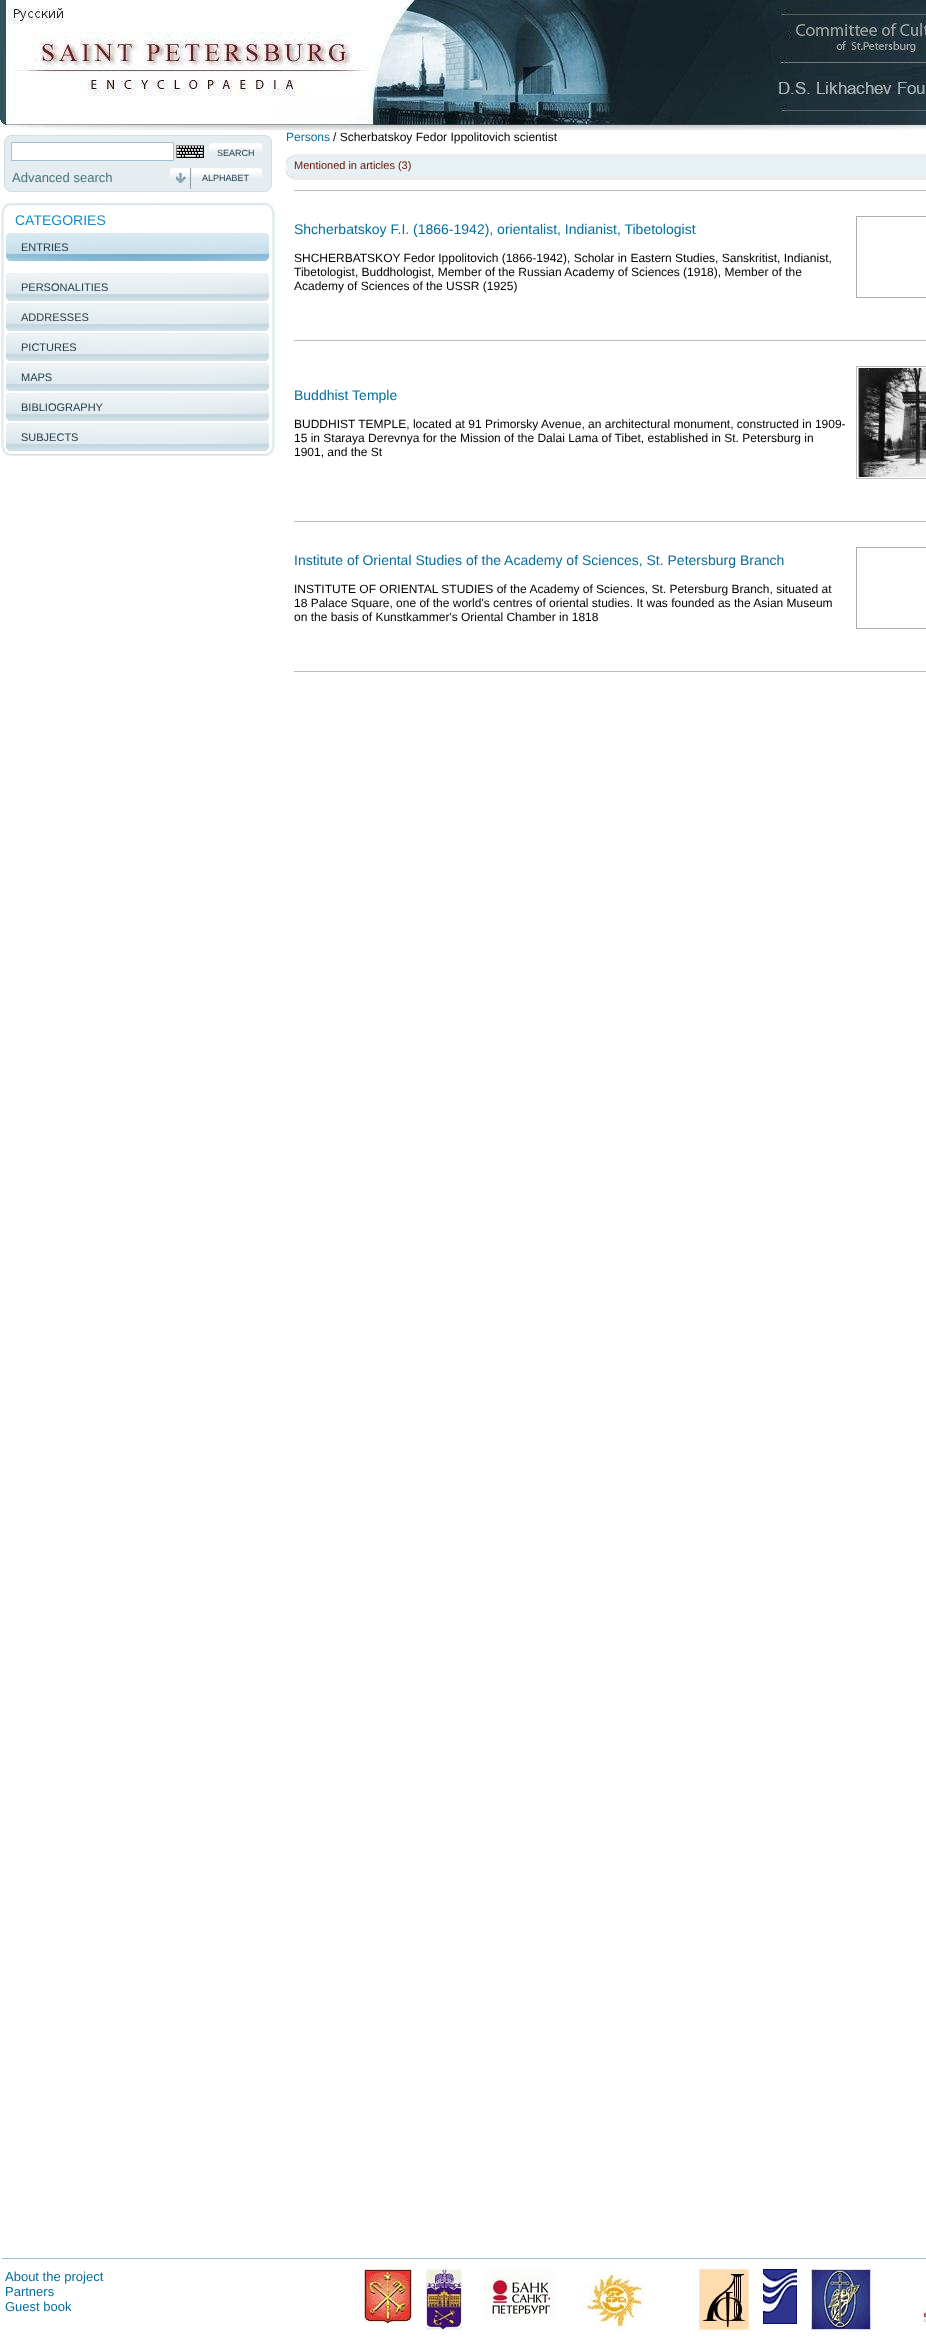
async function draw(canvas) {
  canvas.width = 926
  canvas.height = 2351
  const ctx = canvas.getContext('2d')
  ctx.miterLimit = 4
  ctx.fontKerning = 'normal'
  async function loadImage(src) {
    const img = new Image()
    img.src = src
    await img.decode()
    return img
  }

  ctx.fillStyle = '#fff'
  ctx.fillRect(0, 0, 926, 2351)
  ctx.drawImage(await loadImage('image0.png'), 0, 0, 926, 130)
  ctx.drawImage(await loadImage('image1.png'), 4, 135, 268, 57)
  ctx.beginPath()
  ctx.rect(11.5, 142.5, 162, 18)
  ctx.fill()
  ctx.strokeStyle = '#a4bed4'
  ctx.stroke()
  ctx.drawImage(await loadImage('image2.png'), 176, 145, 28, 13)
  ctx.drawImage(await loadImage('image3.png'), 209, 143, 53, 14)
  ctx.font = '9px Liberation Sans'
  ctx.fillStyle = '#1b3743'
  ctx.fillText('SEARCH', 217, 156)
  ctx.font = '13px Liberation Sans'
  ctx.fillStyle = '#47757c'
  ctx.fillText('Advanced search', 12, 182)
  ctx.drawImage(await loadImage('image4.png'), 170, 168, 92, 21)
  ctx.font = '9px Liberation Sans'
  ctx.fillStyle = '#1b3743'
  ctx.fillText('ALPHABET', 202, 181)
  ctx.fillStyle = '#e6eef1'
  ctx.fillRect(1, 212, 3, 235)
  ctx.fillRect(272, 212, 3, 235)
  ctx.drawImage(await loadImage('image5.png'), 1, 202, 274, 10)
  ctx.drawImage(await loadImage('image6.png'), 1, 447, 274, 9)
  ctx.font = '14px Liberation Sans'
  ctx.fillStyle = '#118dc3'
  ctx.fillText('CATEGORIES', 15, 225)
  ctx.drawImage(await loadImage('image7.png'), 6, 233, 263, 28)
  ctx.font = '11px Liberation Sans'
  ctx.fillStyle = '#1b3743'
  ctx.fillText('ENTRIES', 21, 251)
  ctx.drawImage(await loadImage('image8.png'), 6, 273, 263, 28)
  ctx.fillText('PERSONALITIES', 21, 291)
  ctx.drawImage(await loadImage('image8.png'), 6, 303, 263, 28)
  ctx.fillText('ADDRESSES', 21, 321)
  ctx.drawImage(await loadImage('image8.png'), 6, 333, 263, 28)
  ctx.fillText('PICTURES', 21, 351)
  ctx.drawImage(await loadImage('image8.png'), 6, 363, 263, 28)
  ctx.fillText('MAPS', 21, 381)
  ctx.drawImage(await loadImage('image8.png'), 6, 393, 263, 28)
  ctx.fillText('BIBLIOGRAPHY', 21, 411)
  ctx.drawImage(await loadImage('image8.png'), 6, 423, 263, 28)
  ctx.fillText('SUBJECTS', 21, 441)
  ctx.font = '12px Liberation Sans'
  ctx.fillStyle = '#076e9b'
  ctx.fillText('Persons', 286, 141)
  ctx.fillStyle = '#000'
  ctx.fillText('/ Scherbatskoy Fedor Ippolitovich scientist', 333, 141)
  ctx.fillStyle = '#e7f0f5'
  ctx.fillRect(287, 157, 639, 20)
  ctx.fillStyle = '#f8f8f8'
  ctx.fillRect(284, 163, 3, 8)
  ctx.fillStyle = '#ececec'
  ctx.fillRect(293, 154, 633, 3)
  ctx.fillRect(293, 177, 633, 3)
  ctx.drawImage(await loadImage('image9.png'), 284, 154, 9, 9)
  ctx.drawImage(await loadImage('image10.png'), 284, 171, 9, 9)
  ctx.font = '11px Liberation Sans'
  ctx.fillStyle = '#661003'
  ctx.fillText('Mentioned in articles (3)', 294, 169)
  ctx.fillStyle = '#babfc3'
  ctx.fillRect(294, 190, 632, 1)
  ctx.fillRect(294, 340, 632, 1)
  ctx.font = '14px Liberation Sans'
  ctx.fillStyle = '#076e9b'
  ctx.fillText('Shcherbatskoy F.I. (1866-1942), orientalist, Indianist, Tibetologist', 294, 234)
  ctx.font = '12px Liberation Sans'
  ctx.fillStyle = '#000'
  ctx.fillText('SHCHERBATSKOY Fedor Ippolitovich (1866-1942), Scholar in Eastern Studies, Sanskritist, Indianist,', 294, 262)
  ctx.fillText('Tibetologist, Buddhologist, Member of the Russian Academy of Sciences (1918), Member of the', 294, 276)
  ctx.fillText('Academy of Sciences of the USSR (1925)', 294, 290)
  ctx.strokeStyle = '#adadad'
  ctx.strokeRect(856.5, 216.5, 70, 81)
  ctx.fillStyle = '#babfc3'
  ctx.fillRect(294, 521, 632, 1)
  ctx.font = '14px Liberation Sans'
  ctx.fillStyle = '#076e9b'
  ctx.fillText('Buddhist Temple', 294, 400)
  ctx.font = '12px Liberation Sans'
  ctx.fillStyle = '#000'
  ctx.fillText('BUDDHIST TEMPLE, located at 91 Primorsky Avenue, an architectural monument, constructed in 1909-', 294, 428)
  ctx.fillText('15 in Staraya Derevnya for the Mission of the Dalai Lama of Tibet, established in St. Petersburg in', 294, 442)
  ctx.fillText('1901, and the St', 294, 456)
  ctx.strokeStyle = '#babfc3'
  ctx.strokeRect(856.5, 366.5, 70, 112)
  ctx.drawImage(await loadImage('image11.png'), 858, 368, 68, 109)
  ctx.fillStyle = '#babfc3'
  ctx.fillRect(294, 671, 632, 1)
  ctx.font = '14px Liberation Sans'
  ctx.fillStyle = '#076e9b'
  ctx.fillText('Institute of Oriental Studies of the Academy of Sciences, St. Petersburg Branch', 294, 565)
  ctx.font = '12px Liberation Sans'
  ctx.fillStyle = '#000'
  ctx.fillText('INSTITUTE OF ORIENTAL STUDIES of the Academy of Sciences, St. Petersburg Branch, situated at', 294, 593)
  ctx.fillText('18 Palace Square, one of the world\'s centres of oriental studies. It was founded as the Asian Museum', 294, 607)
  ctx.fillText('on the basis of Kunstkammer\'s Oriental Chamber in 1818', 294, 621)
  ctx.strokeStyle = '#adadad'
  ctx.strokeRect(856.5, 547.5, 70, 81)
  ctx.fillStyle = '#a1bdc9'
  ctx.fillRect(2, 2258, 924, 1)
  ctx.font = '13px Liberation Sans'
  ctx.fillStyle = '#076e9b'
  ctx.fillText('About the project', 5, 2281)
  ctx.fillText('Partners', 5, 2296)
  ctx.fillText('Guest book', 5, 2311)
  ctx.drawImage(await loadImage('image12.png'), 364, 2269, 48, 55)
  ctx.drawImage(await loadImage('image13.png'), 426, 2269, 36, 61)
  ctx.drawImage(await loadImage('image14.png'), 483, 2269, 73, 51)
  ctx.drawImage(await loadImage('image15.png'), 581, 2269, 64, 61)
  ctx.drawImage(await loadImage('image16.png'), 699, 2269, 50, 61)
  ctx.drawImage(await loadImage('image17.png'), 763, 2269, 34, 55)
  ctx.drawImage(await loadImage('image18.png'), 811, 2269, 60, 61)
  ctx.drawImage(await loadImage('image19.png'), 921, 2306, 5, 19)
}

draw(document.querySelector('canvas'))
